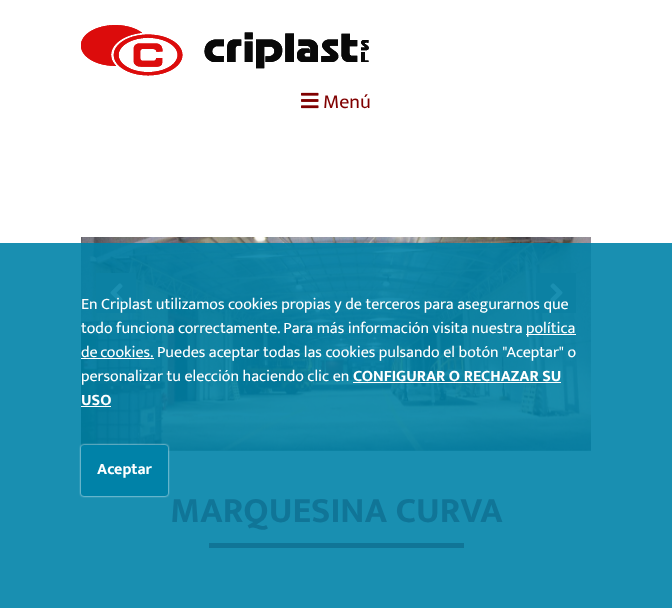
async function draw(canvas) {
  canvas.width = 672
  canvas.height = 608
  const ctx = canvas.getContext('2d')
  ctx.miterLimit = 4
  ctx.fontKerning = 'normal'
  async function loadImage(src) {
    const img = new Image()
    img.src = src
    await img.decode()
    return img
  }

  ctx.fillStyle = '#fff'
  ctx.fillRect(0, 0, 672, 608)
  ctx.drawImage(await loadImage('image0.png'), 81, 25, 288, 51)
  ctx.drawImage(await loadImage('image1.png'), 301, 92, 18, 17)
  ctx.font = '20px Mukta Mahee'
  ctx.fillStyle = '#800000'
  ctx.fillText('Menú', 323, 108)
  ctx.fillStyle = '#198fb1'
  ctx.fillRect(0, 243, 672, 365)
  ctx.drawImage(await loadImage('image2.png'), 81, 237, 510, 214)
  ctx.fillStyle = '#0c81a3'
  ctx.fillRect(96, 273, 40, 40)
  ctx.drawImage(await loadImage('image3.png'), 110, 283, 13, 20)
  ctx.fillRect(536, 273, 40, 40)
  ctx.drawImage(await loadImage('image4.png'), 550, 283, 13, 20)
  ctx.font = '16px Mukta Mahee'
  ctx.fillStyle = '#fff'
  ctx.fillText('En Criplast utilizamos cookies propias y de terceros para asegurarnos que', 81, 309)
  ctx.fillText('todo funciona correctamente. Para más información visita nuestra', 81, 333)
  ctx.fillRect(526, 334, 50, 1)
  ctx.fillText('política', 526, 333)
  ctx.wordSpacing = '-1px'
  ctx.fillText('de cookies.', 81, 357)
  ctx.fillRect(81, 358, 73, 1)
  ctx.wordSpacing = '0px'
  ctx.fillText('Puedes aceptar todas las cookies pulsando el botón "Aceptar" o', 157, 357)
  ctx.fillText('personalizar tu elección haciendo clic en', 81, 381)
  ctx.font = 'bold 16px Mukta Mahee'
  ctx.fillText('CONFIGURAR O RECHAZAR SU', 353, 381)
  ctx.fillRect(353, 382, 208, 1)
  ctx.fillText('USO', 81, 405)
  ctx.fillRect(81, 406, 30, 1)
  ctx.filter = 'blur(1px)'
  ctx.beginPath()
  ctx.roundRect(81, 445, 87, 51, 3)
  ctx.fill()
  ctx.filter = 'none'
  ctx.fillStyle = '#0082a8'
  ctx.beginPath()
  ctx.roundRect(81, 445, 87, 51, 3)
  ctx.fill()
  ctx.fillStyle = '#fff'
  ctx.fillText('Aceptar', 97, 474)
  ctx.font = 'bold 36px Mukta Mahee'
  ctx.fillStyle = '#107597'
  ctx.fillText('MARQUESINA CURVA', 170, 522)
  ctx.fillRect(209, 543, 255, 5)
}

draw(document.querySelector('canvas'))
